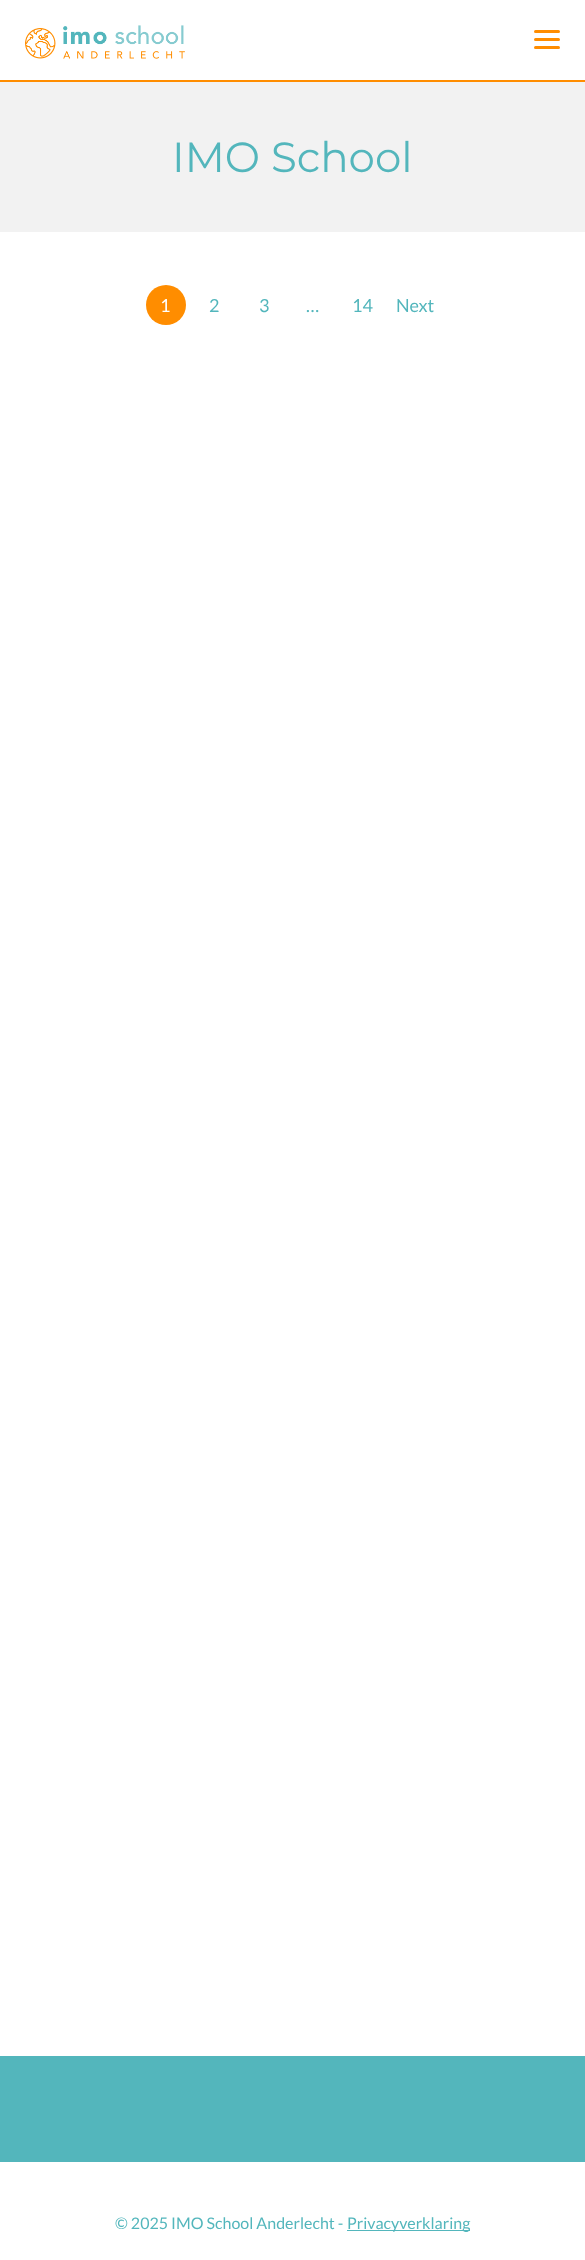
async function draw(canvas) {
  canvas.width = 585
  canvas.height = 2260
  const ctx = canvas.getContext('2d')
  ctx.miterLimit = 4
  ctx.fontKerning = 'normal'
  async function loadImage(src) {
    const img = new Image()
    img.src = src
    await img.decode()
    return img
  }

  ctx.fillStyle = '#fff'
  ctx.fillRect(0, 0, 585, 2260)
  ctx.fillStyle = '#ff8d00'
  ctx.fillRect(0, 80, 585, 2)
  ctx.drawImage(await loadImage('image0.png'), 25, 25, 160, 34)
  ctx.beginPath()
  ctx.roundRect(534, 30, 26, 3, 1.5)
  ctx.fill()
  ctx.beginPath()
  ctx.roundRect(534, 38, 26, 3, 1.5)
  ctx.fill()
  ctx.beginPath()
  ctx.roundRect(534, 46, 26, 3, 1.5)
  ctx.fill()
  ctx.fillStyle = '#f2f2f2'
  ctx.fillRect(0, 82, 585, 150)
  ctx.font = '42px Montserrat'
  ctx.fillStyle = '#53b6bc'
  ctx.fillText('IMO School', 172, 172)
  ctx.fillStyle = '#ff8d00'
  ctx.beginPath()
  ctx.arc(166, 305, 20, 0, 2 * Math.PI)
  ctx.fill()
  ctx.font = '18px Lato'
  ctx.fillStyle = '#fff'
  ctx.fillText('1', 160, 312)
  ctx.fillStyle = '#53b6bc'
  ctx.fillText('2', 209, 312)
  ctx.fillText('3', 259, 312)
  ctx.fillText('…', 306, 312)
  ctx.fillText('14', 352, 312)
  ctx.fillText('Next', 396, 312)
  ctx.fillRect(0, 2056, 585, 106)
  ctx.font = '16px Lato'
  ctx.fillText('© 2025 IMO School Anderlecht -', 115, 2229)
  ctx.fillRect(347, 2230, 123, 1)
  ctx.fillText('Privacyverklaring', 347, 2229)
}

draw(document.querySelector('canvas'))
